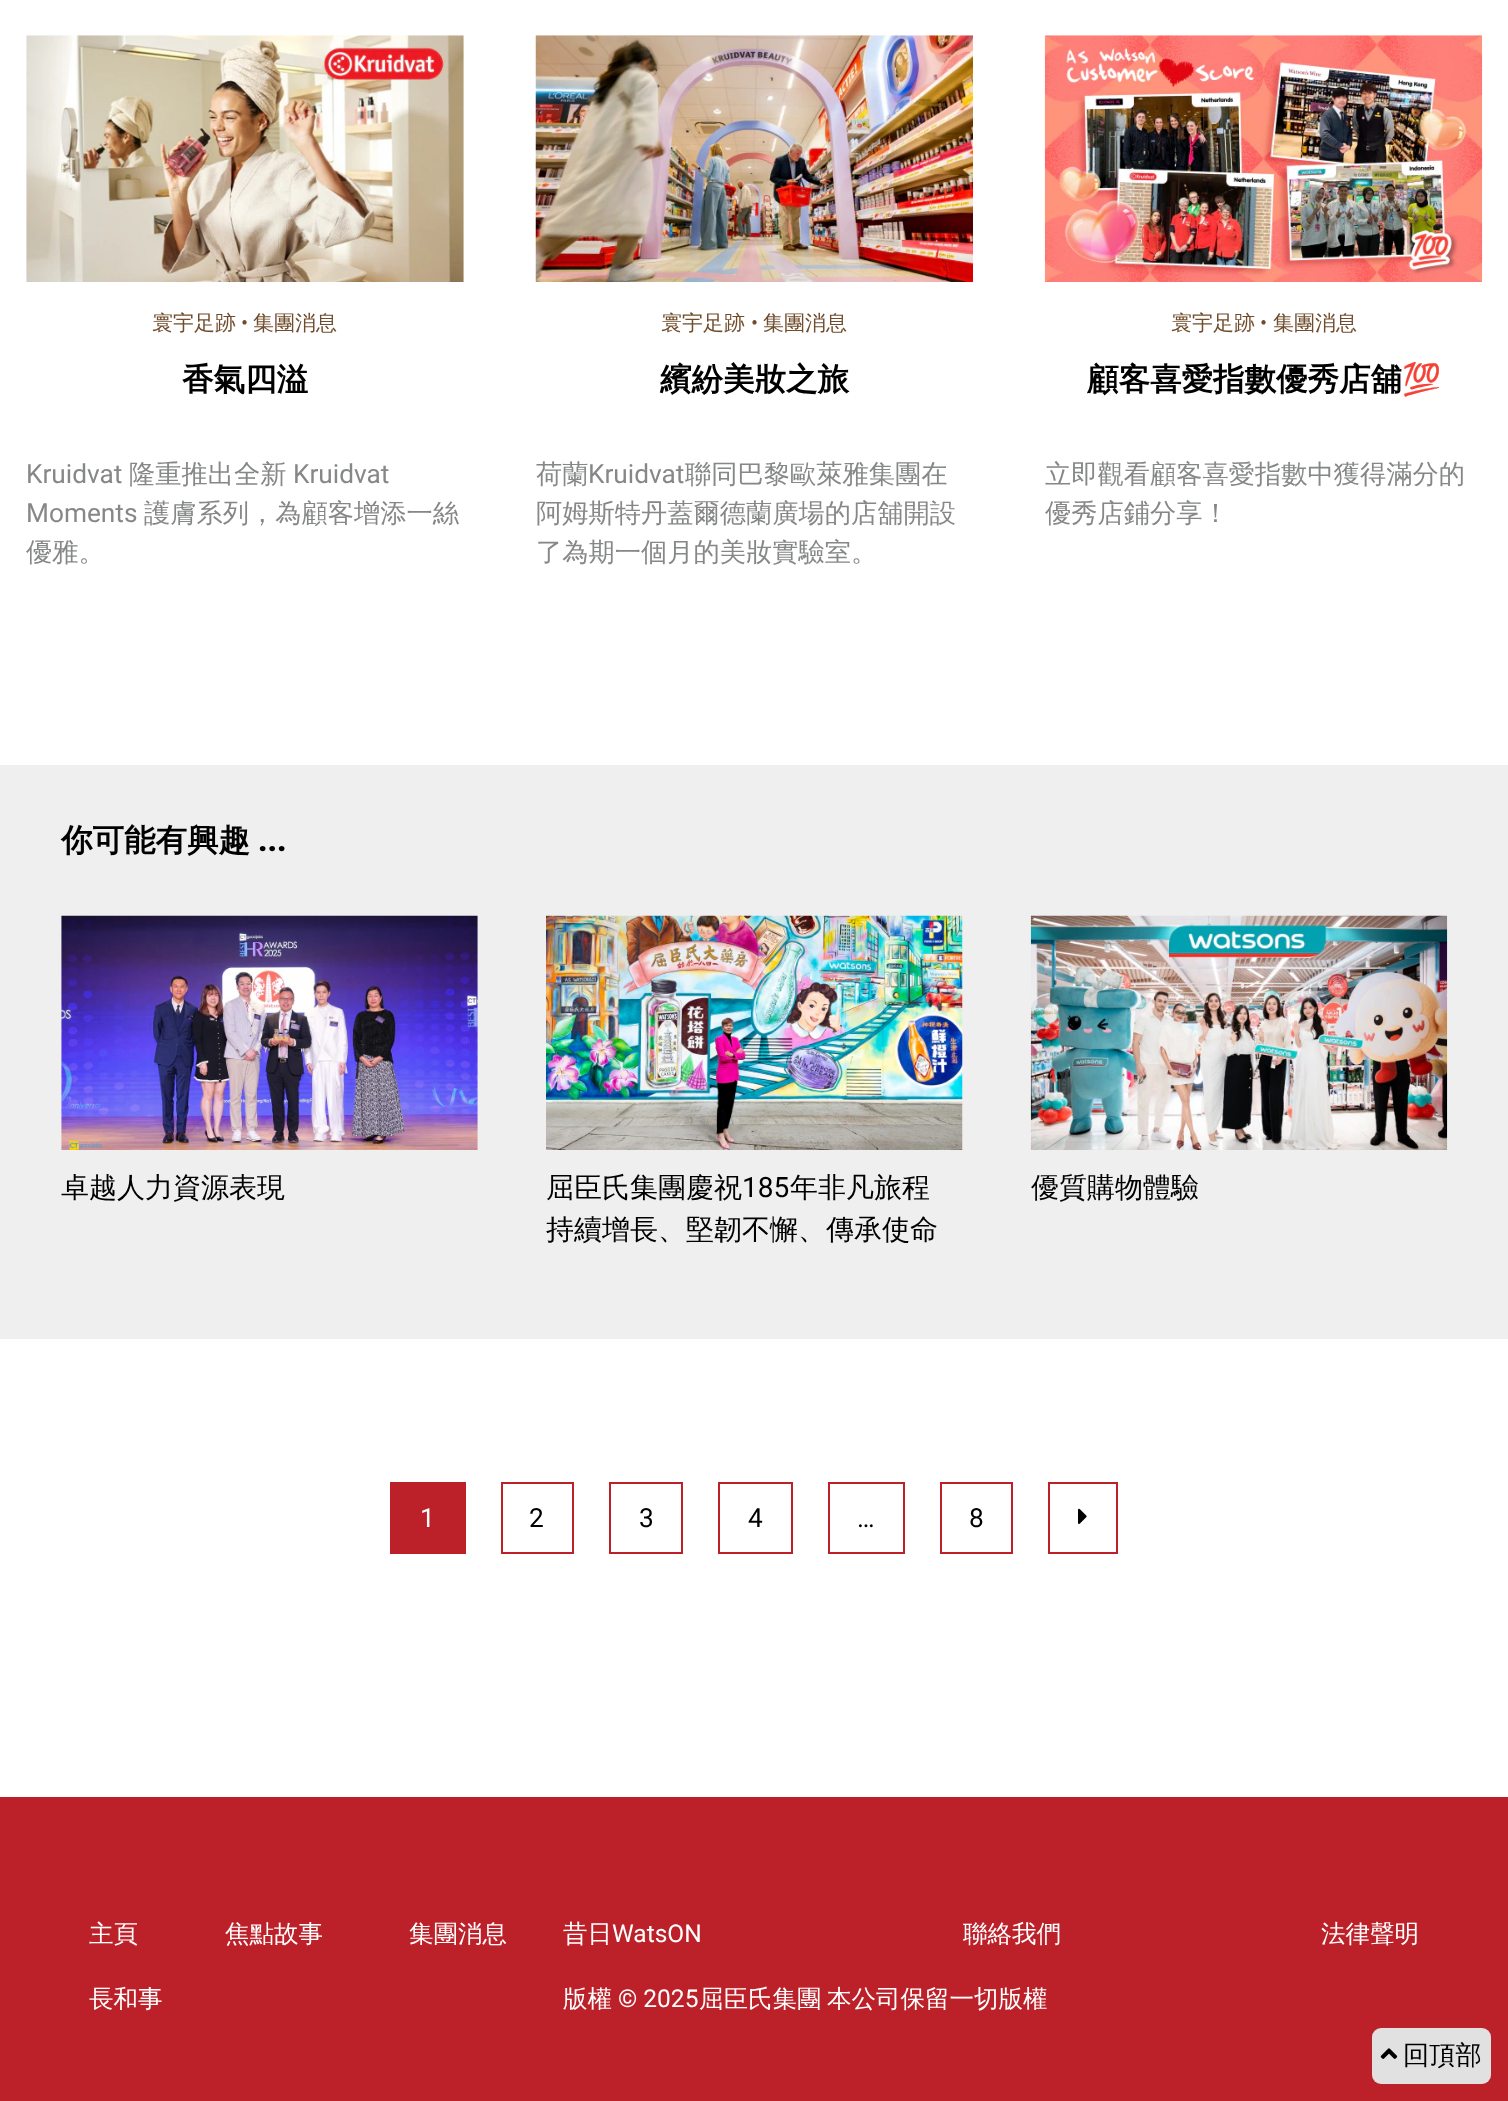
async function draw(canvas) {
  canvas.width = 1508
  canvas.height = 2101
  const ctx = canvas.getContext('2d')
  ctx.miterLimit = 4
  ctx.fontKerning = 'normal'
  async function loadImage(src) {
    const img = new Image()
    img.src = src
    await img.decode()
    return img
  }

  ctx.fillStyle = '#fff'
  ctx.fillRect(0, 0, 1508, 2101)
  ctx.drawImage(await loadImage('image0.png'), 26, 35, 438, 247)
  ctx.font = '500 21px WenQuanYi Zen Hei'
  ctx.fillStyle = '#704c2c'
  ctx.fillText('寰宇足跡', 152, 330)
  ctx.font = '21px Roboto'
  ctx.fillText('•', 241, 330)
  ctx.font = '500 21px WenQuanYi Zen Hei'
  ctx.fillText('集團消息', 253, 330)
  ctx.font = 'bold 31.5px WenQuanYi Zen Hei'
  ctx.fillStyle = '#000'
  ctx.fillText('香氣四溢', 182, 390)
  ctx.font = '26.25px Roboto'
  ctx.fillStyle = '#868887'
  ctx.fillText('Kruidvat', 26, 483)
  ctx.font = '500 26.25px WenQuanYi Zen Hei'
  ctx.fillText('隆重推出全新', 129, 483)
  ctx.font = '26.25px Roboto'
  ctx.fillText('Kruidvat', 293, 483)
  ctx.fillText('Moments', 26, 522)
  ctx.font = '500 26.25px WenQuanYi Zen Hei'
  ctx.fillText('護膚系列，為顧客增添一絲', 144, 522)
  ctx.fillText('優雅。', 26, 561)
  ctx.drawImage(await loadImage('image1.png'), 535, 35, 438, 247)
  ctx.font = '500 21px WenQuanYi Zen Hei'
  ctx.fillStyle = '#704c2c'
  ctx.fillText('寰宇足跡', 661, 330)
  ctx.font = '21px Roboto'
  ctx.fillText('•', 751, 330)
  ctx.font = '500 21px WenQuanYi Zen Hei'
  ctx.fillText('集團消息', 763, 330)
  ctx.font = 'bold 31.5px WenQuanYi Zen Hei'
  ctx.fillStyle = '#000'
  ctx.fillText('繽紛美妝之旅', 660, 390)
  ctx.font = '500 26.25px WenQuanYi Zen Hei'
  ctx.fillStyle = '#868887'
  ctx.fillText('荷蘭', 536, 483)
  ctx.font = '26.25px Roboto'
  ctx.fillText('Kruidvat', 588, 483)
  ctx.font = '500 26.25px WenQuanYi Zen Hei'
  ctx.fillText('聯同巴黎歐萊雅集團在', 685, 483)
  ctx.fillText('阿姆斯特丹蓋爾德蘭廣場的店舖開設', 536, 522)
  ctx.fillText('了為期一個月的美妝實驗室。', 536, 561)
  ctx.drawImage(await loadImage('image2.png'), 1044, 35, 439, 247)
  ctx.font = '500 21px WenQuanYi Zen Hei'
  ctx.fillStyle = '#704c2c'
  ctx.fillText('寰宇足跡', 1171, 330)
  ctx.font = '21px Roboto'
  ctx.fillText('•', 1260, 330)
  ctx.font = '500 21px WenQuanYi Zen Hei'
  ctx.fillText('集團消息', 1273, 330)
  ctx.font = 'bold 31.5px WenQuanYi Zen Hei'
  ctx.fillStyle = '#000'
  ctx.fillText('顧客喜愛指數優秀店舖', 1087, 390)
  ctx.font = 'bold 31.5px Noto Color Emoji'
  ctx.fillText('💯', 1402, 390)
  ctx.font = '500 26.25px WenQuanYi Zen Hei'
  ctx.fillStyle = '#868887'
  ctx.fillText('立即觀看顧客喜愛指數中獲得滿分的', 1045, 483)
  ctx.fillText('優秀店鋪分享！', 1045, 522)
  ctx.fillStyle = '#efefef'
  ctx.fillRect(0, 765, 1508, 574)
  ctx.font = 'bold 31.5px WenQuanYi Zen Hei'
  ctx.fillStyle = '#000'
  ctx.fillText('你可能有興趣', 61, 851)
  ctx.font = '900 31.5px Roboto'
  ctx.fillText('...', 258, 851)
  ctx.drawImage(await loadImage('image3.png'), 61, 915, 417, 235)
  ctx.font = '500 28px WenQuanYi Zen Hei'
  ctx.fillText('卓越人力資源表現', 61, 1197)
  ctx.drawImage(await loadImage('image4.png'), 546, 915, 417, 235)
  ctx.fillText('屈臣氏集團慶祝', 546, 1197)
  ctx.font = '28px Roboto'
  ctx.fillText('185', 742, 1197)
  ctx.font = '500 28px WenQuanYi Zen Hei'
  ctx.fillText('年非凡旅程', 790, 1197)
  ctx.fillText('持續增長、堅韌不懈、傳承使命', 546, 1239)
  ctx.drawImage(await loadImage('image5.png'), 1030, 915, 418, 235)
  ctx.fillText('優質購物體驗', 1031, 1197)
  ctx.fillStyle = '#bc2129'
  ctx.fillRect(390, 1482, 76, 72)
  ctx.font = '26.25px Roboto'
  ctx.fillStyle = '#fff'
  ctx.fillText('1', 420, 1527)
  ctx.strokeStyle = '#bc2129'
  ctx.lineWidth = 2
  ctx.strokeRect(502, 1483, 71, 70)
  ctx.fillStyle = '#000'
  ctx.fillText('2', 529, 1527)
  ctx.strokeRect(610, 1483, 72, 70)
  ctx.fillText('3', 639, 1527)
  ctx.strokeRect(719, 1483, 73, 70)
  ctx.fillText('4', 748, 1527)
  ctx.strokeRect(829, 1483, 75, 70)
  ctx.fillText('…', 857, 1527)
  ctx.strokeRect(941, 1483, 71, 70)
  ctx.fillText('8', 969, 1527)
  ctx.strokeRect(1049, 1483, 68, 70)
  ctx.drawImage(await loadImage('image6.png'), 1078, 1508, 9, 16)
  ctx.fillStyle = '#bc2129'
  ctx.fillRect(0, 1797, 1508, 304)
  ctx.font = '500 24.5px WenQuanYi Zen Hei'
  ctx.fillStyle = '#fff'
  ctx.fillText('主頁', 89, 1942)
  ctx.fillText('焦點故事', 225, 1942)
  ctx.fillText('集團消息', 409, 1942)
  ctx.fillText('長和事', 89, 2007)
  ctx.fillText('昔日', 563, 1942)
  ctx.font = '24.5px Roboto'
  ctx.fillText('WatsON', 612, 1942)
  ctx.font = '500 24.5px WenQuanYi Zen Hei'
  ctx.fillText('聯絡我們', 963, 1942)
  ctx.fillText('法律聲明', 1321, 1942)
  ctx.fillText('版權', 563, 2007)
  ctx.font = '24.5px Roboto'
  ctx.fillText('© 2025', 618, 2007)
  ctx.font = '500 24.5px WenQuanYi Zen Hei'
  ctx.fillText('屈臣氏集團', 699, 2007)
  ctx.fillText('本公司保留一切版權', 827, 2007)
  ctx.fillStyle = '#e1e1e1'
  ctx.beginPath()
  ctx.roundRect(1372, 2028, 119, 56, 9)
  ctx.fill()
  ctx.drawImage(await loadImage('image7.png'), 1380, 2048, 18, 11)
  ctx.font = '500 26.25px WenQuanYi Zen Hei'
  ctx.fillStyle = '#000'
  ctx.fillText('回頂部', 1403, 2064)
}

draw(document.querySelector('canvas'))
